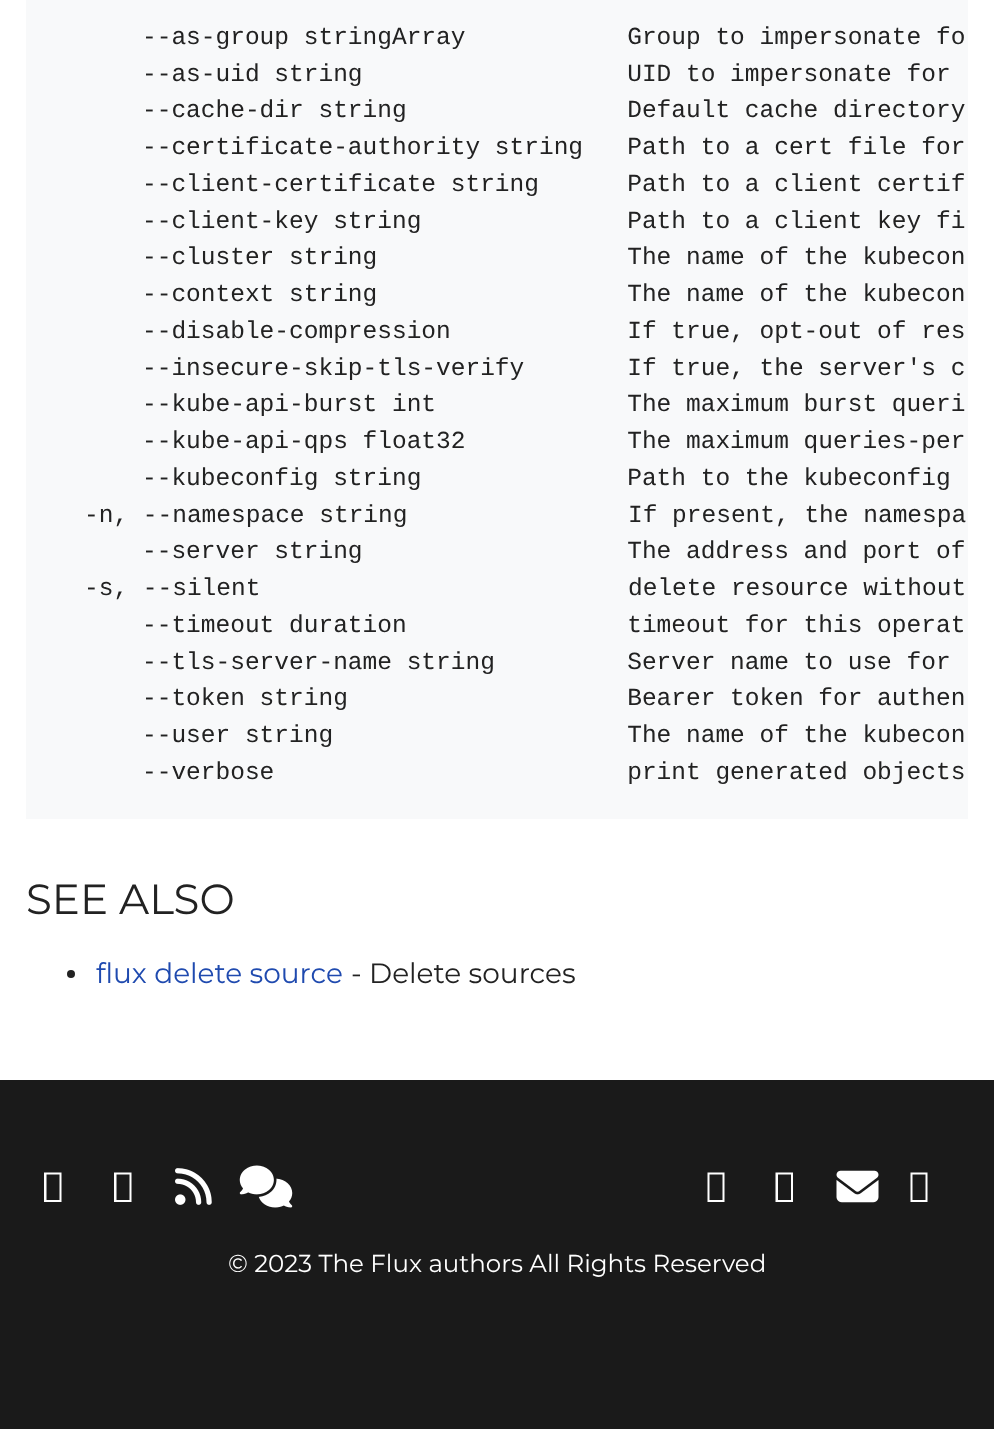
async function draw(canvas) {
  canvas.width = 994
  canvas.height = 1429
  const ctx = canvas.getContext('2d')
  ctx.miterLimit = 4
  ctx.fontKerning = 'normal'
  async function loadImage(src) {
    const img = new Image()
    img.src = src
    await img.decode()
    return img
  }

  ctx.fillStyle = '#fff'
  ctx.fillRect(0, 0, 994, 1429)
  ctx.fillStyle = '#f8f9fa'
  ctx.fillRect(26, 0, 942, 819)
  ctx.font = '24.5px Liberation Mono'
  ctx.fillStyle = '#222'
  ctx.fillText('--as-group stringArray           Group to impersonate fo', 142, 44)
  ctx.fillText('--as-uid string                  UID to impersonate for', 142, 81)
  ctx.fillText('--cache-dir string               Default cache directory', 142, 117)
  ctx.fillText('--certificate-authority string   Path to a cert file for', 142, 154)
  ctx.fillText('--client-certificate string      Path to a client certif', 142, 191)
  ctx.fillText('--client-key string              Path to a client key fi', 142, 228)
  ctx.fillText('--cluster string                 The name of the kubecon', 142, 264)
  ctx.fillText('--context string                 The name of the kubecon', 142, 301)
  ctx.fillText('--disable-compression            If true, opt-out of res', 142, 338)
  ctx.fillText('--insecure-skip-tls-verify       If true, the server\'s c', 142, 375)
  ctx.fillText('--kube-api-burst int             The maximum burst queri', 142, 411)
  ctx.fillText('--kube-api-qps float32           The maximum queries-per', 142, 448)
  ctx.fillText('--kubeconfig string              Path to the kubeconfig', 142, 485)
  ctx.fillText('-n, --namespace string               If present, the namespa', 84, 522)
  ctx.fillText('--server string                  The address and port of', 142, 558)
  ctx.fillText('-s, --silent                         delete resource without', 84, 595)
  ctx.fillText('--timeout duration               timeout for this operat', 142, 632)
  ctx.fillText('--tls-server-name string         Server name to use for', 142, 669)
  ctx.fillText('--token string                   Bearer token for authen', 142, 705)
  ctx.fillText('--user string                    The name of the kubecon', 142, 742)
  ctx.fillText('--verbose                        print generated objects', 142, 779)
  ctx.font = '42px Montserrat'
  ctx.fillText('SEE ALSO', 26, 914)
  ctx.beginPath()
  ctx.arc(71, 974, 4, 0, 2 * Math.PI)
  ctx.fill()
  ctx.font = '28px Montserrat'
  ctx.fillStyle = '#1f4aaf'
  ctx.fillText('flux delete source', 96, 983)
  ctx.fillStyle = '#222'
  ctx.fillText('- Delete sources', 351, 983)
  ctx.fillStyle = '#1a1a1a'
  ctx.fillRect(0, 1080, 994, 349)
  ctx.fillStyle = '#fff'
  ctx.beginPath()
  ctx.moveTo(44, 1202)
  ctx.lineTo(44, 1172.5)
  ctx.lineTo(61.5, 1172.5)
  ctx.lineTo(61.5, 1202)
  ctx.closePath()
  ctx.moveTo(46.5, 1200)
  ctx.lineTo(59.5, 1200)
  ctx.lineTo(59.5, 1174.5)
  ctx.lineTo(46.5, 1174.5)
  ctx.closePath()
  ctx.fill()
  ctx.beginPath()
  ctx.moveTo(114, 1202)
  ctx.lineTo(114, 1172.5)
  ctx.lineTo(131.5, 1172.5)
  ctx.lineTo(131.5, 1202)
  ctx.closePath()
  ctx.moveTo(116.5, 1200)
  ctx.lineTo(129.5, 1200)
  ctx.lineTo(129.5, 1174.5)
  ctx.lineTo(116.5, 1174.5)
  ctx.closePath()
  ctx.fill()
  ctx.drawImage(await loadImage('image0.png'), 175, 1168, 37, 37)
  ctx.drawImage(await loadImage('image1.png'), 239, 1165, 54, 43)
  ctx.beginPath()
  ctx.moveTo(707.5, 1202)
  ctx.lineTo(707.5, 1172.5)
  ctx.lineTo(724.5, 1172.5)
  ctx.lineTo(724.5, 1202)
  ctx.closePath()
  ctx.moveTo(709.5, 1200)
  ctx.lineTo(722.5, 1200)
  ctx.lineTo(722.5, 1174.5)
  ctx.lineTo(709.5, 1174.5)
  ctx.closePath()
  ctx.fill()
  ctx.beginPath()
  ctx.moveTo(775.5, 1202)
  ctx.lineTo(775.5, 1172.5)
  ctx.lineTo(793, 1172.5)
  ctx.lineTo(793, 1202)
  ctx.closePath()
  ctx.moveTo(778, 1200)
  ctx.lineTo(791, 1200)
  ctx.lineTo(791, 1174.5)
  ctx.lineTo(778, 1174.5)
  ctx.closePath()
  ctx.fill()
  ctx.drawImage(await loadImage('image2.png'), 836, 1170, 43, 33)
  ctx.beginPath()
  ctx.moveTo(910.5, 1202)
  ctx.lineTo(910.5, 1172.5)
  ctx.lineTo(927.5, 1172.5)
  ctx.lineTo(927.5, 1202)
  ctx.closePath()
  ctx.moveTo(912.5, 1200)
  ctx.lineTo(925.5, 1200)
  ctx.lineTo(925.5, 1174.5)
  ctx.lineTo(912.5, 1174.5)
  ctx.closePath()
  ctx.fill()
  ctx.font = '24.5px Montserrat'
  ctx.fillText('© 2023 The Flux authors All Rights Reserved', 228, 1272)
}

draw(document.querySelector('canvas'))
